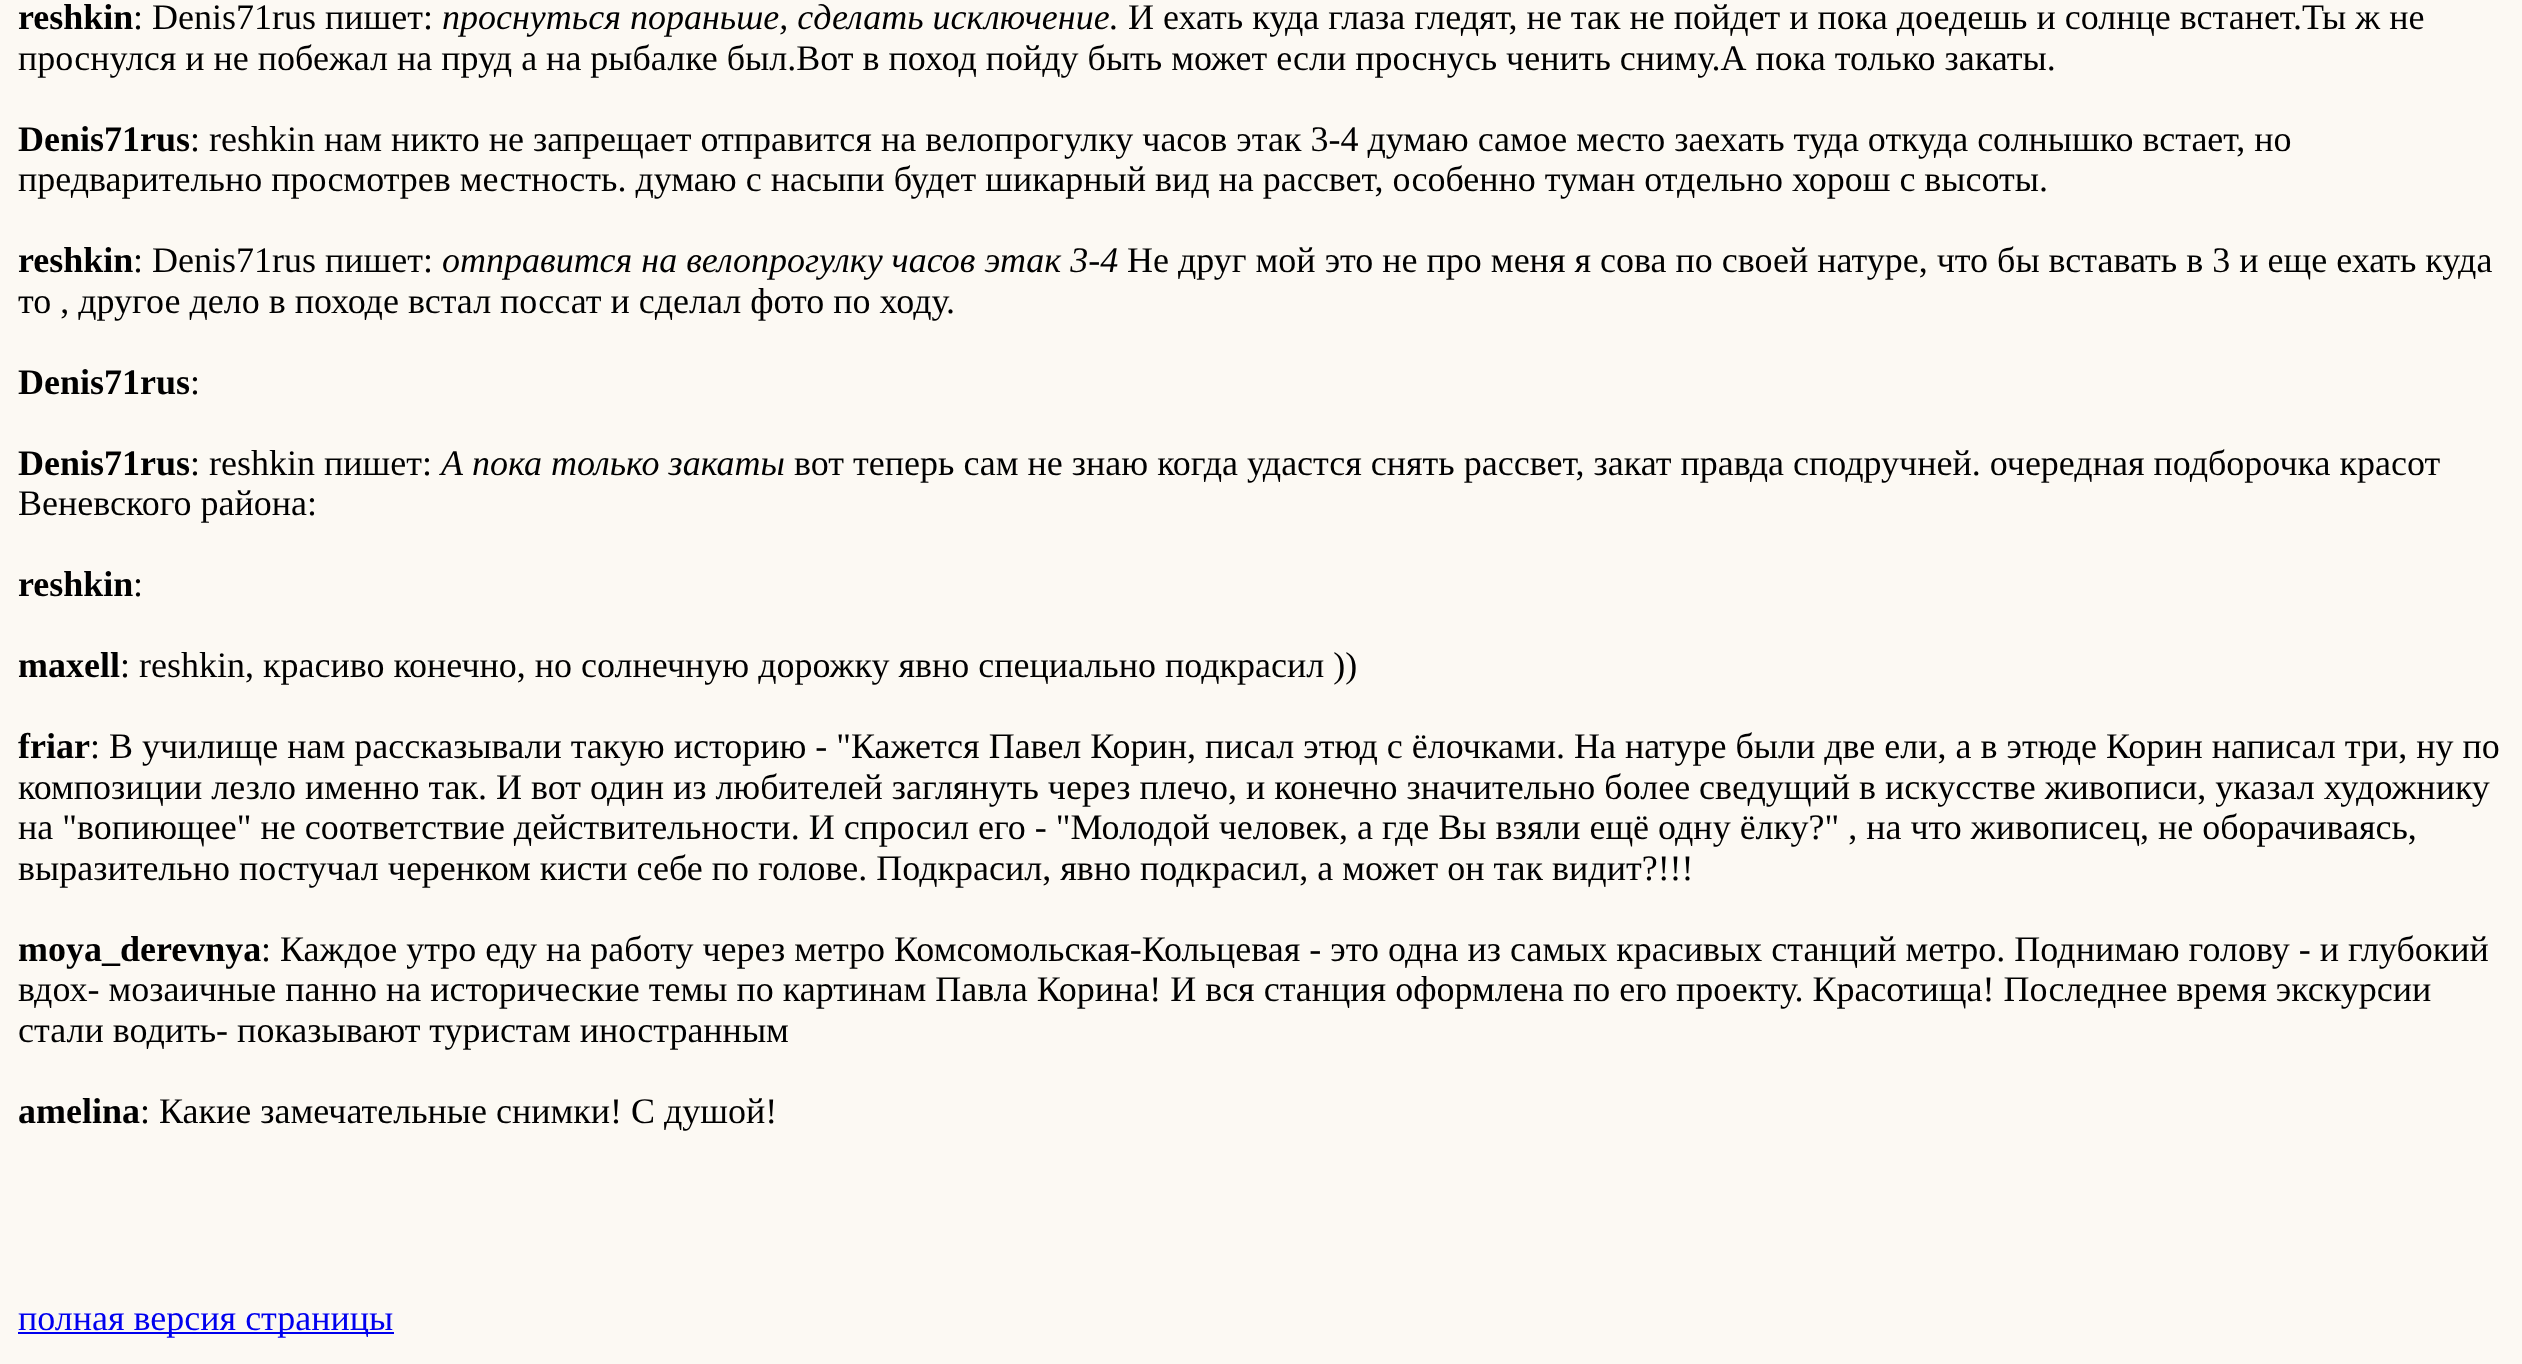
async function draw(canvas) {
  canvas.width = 2522
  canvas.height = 1364
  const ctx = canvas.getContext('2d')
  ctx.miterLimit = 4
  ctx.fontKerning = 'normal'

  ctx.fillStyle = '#fcf9f3'
  ctx.fillRect(0, 0, 2522, 1364)
  ctx.font = 'bold 36px Liberation Serif'
  ctx.fillStyle = '#000'
  ctx.fillText('reshkin', 18, 29)
  ctx.font = '36px Liberation Serif'
  ctx.fillText(': Denis71rus пишет:', 133, 29)
  ctx.font = 'italic 36px Liberation Serif'
  ctx.fillText('проснуться пораньше, сделать исключение.', 442, 29)
  ctx.font = '36px Liberation Serif'
  ctx.fillText('И ехать куда глаза гледят, не так не пойдет и пока доедешь и солнце встанет.Ты ж не', 1128, 29)
  ctx.fillText('проснулся и не побежал на пруд а на рыбалке был.Вот в поход пойду быть может если проснусь ченить сниму.А пока только закаты.', 18, 70)
  ctx.font = 'bold 36px Liberation Serif'
  ctx.fillText('Denis71rus', 18, 151)
  ctx.font = '36px Liberation Serif'
  ctx.fillText(': reshkin нам никто не запрещает отправится на велопрогулку часов этак 3-4 думаю самое место заехать туда откуда солнышко встает, но', 190, 151)
  ctx.fillText('предварительно просмотрев местность. думаю с насыпи будет шикарный вид на рассвет, особенно туман отдельно хорош с высоты.', 18, 191)
  ctx.font = 'bold 36px Liberation Serif'
  ctx.fillText('reshkin', 18, 272)
  ctx.font = '36px Liberation Serif'
  ctx.fillText(': Denis71rus пишет:', 133, 272)
  ctx.font = 'italic 36px Liberation Serif'
  ctx.fillText('отправится на велопрогулку часов этак 3-4', 442, 272)
  ctx.font = '36px Liberation Serif'
  ctx.fillText('Не друг мой это не про меня я сова по своей натуре, что бы вставать в 3 и еще ехать куда', 1127, 272)
  ctx.fillText('то , другое дело в походе встал поссат и сделал фото по ходу.', 18, 313)
  ctx.font = 'bold 36px Liberation Serif'
  ctx.fillText('Denis71rus', 18, 394)
  ctx.font = '36px Liberation Serif'
  ctx.fillText(':', 190, 394)
  ctx.font = 'bold 36px Liberation Serif'
  ctx.fillText('Denis71rus', 18, 475)
  ctx.font = '36px Liberation Serif'
  ctx.fillText(': reshkin пишет:', 190, 475)
  ctx.font = 'italic 36px Liberation Serif'
  ctx.fillText('А пока только закаты', 441, 475)
  ctx.font = '36px Liberation Serif'
  ctx.fillText('вот теперь сам не знаю когда удастся снять рассвет, закат правда сподручней. очередная подборочка красот', 794, 475)
  ctx.fillText('Веневского района:', 18, 515)
  ctx.font = 'bold 36px Liberation Serif'
  ctx.fillText('reshkin', 18, 596)
  ctx.font = '36px Liberation Serif'
  ctx.fillText(':', 133, 596)
  ctx.font = 'bold 36px Liberation Serif'
  ctx.fillText('maxell', 18, 677)
  ctx.font = '36px Liberation Serif'
  ctx.fillText(': reshkin, красиво конечно, но солнечную дорожку явно специально подкрасил ))', 120, 677)
  ctx.font = 'bold 36px Liberation Serif'
  ctx.fillText('friar', 18, 758)
  ctx.font = '36px Liberation Serif'
  ctx.fillText(': В училище нам рассказывали такую историю - "Кажется Павел Корин, писал этюд с ёлочками. На натуре были две ели, а в этюде Корин написал три, ну по', 90, 758)
  ctx.fillText('композиции лезло именно так. И вот один из любителей заглянуть через плечо, и конечно значительно более сведущий в искусстве живописи, указал художнику', 18, 799)
  ctx.fillText('на "вопиющее" не соответствие действительности. И спросил его - "Молодой человек, а где Вы взяли ещё одну ёлку?" , на что живописец, не оборачиваясь,', 18, 839)
  ctx.fillText('выразительно постучал черенком кисти себе по голове. Подкрасил, явно подкрасил, а может он так видит?!!!', 18, 880)
  ctx.font = 'bold 36px Liberation Serif'
  ctx.fillText('moya_derevnya', 18, 961)
  ctx.font = '36px Liberation Serif'
  ctx.fillText(': Каждое утро еду на работу через метро Комсомольская-Кольцевая - это одна из самых красивых станций метро. Поднимаю голову - и глубокий', 261, 961)
  ctx.fillText('вдох- мозаичные панно на исторические темы по картинам Павла Корина! И вся станция оформлена по его проекту. Красотища! Последнее время экскурсии', 18, 1001)
  ctx.fillText('стали водить- показывают туристам иностранным', 18, 1042)
  ctx.font = 'bold 36px Liberation Serif'
  ctx.fillText('amelina', 18, 1123)
  ctx.font = '36px Liberation Serif'
  ctx.fillText(': Какие замечательные снимки! С душой!', 140, 1123)
  ctx.fillStyle = '#00e'
  ctx.fillRect(18, 1332, 376, 2)
  ctx.fillText('полная версия страницы', 18, 1330)
}

draw(document.querySelector('canvas'))
